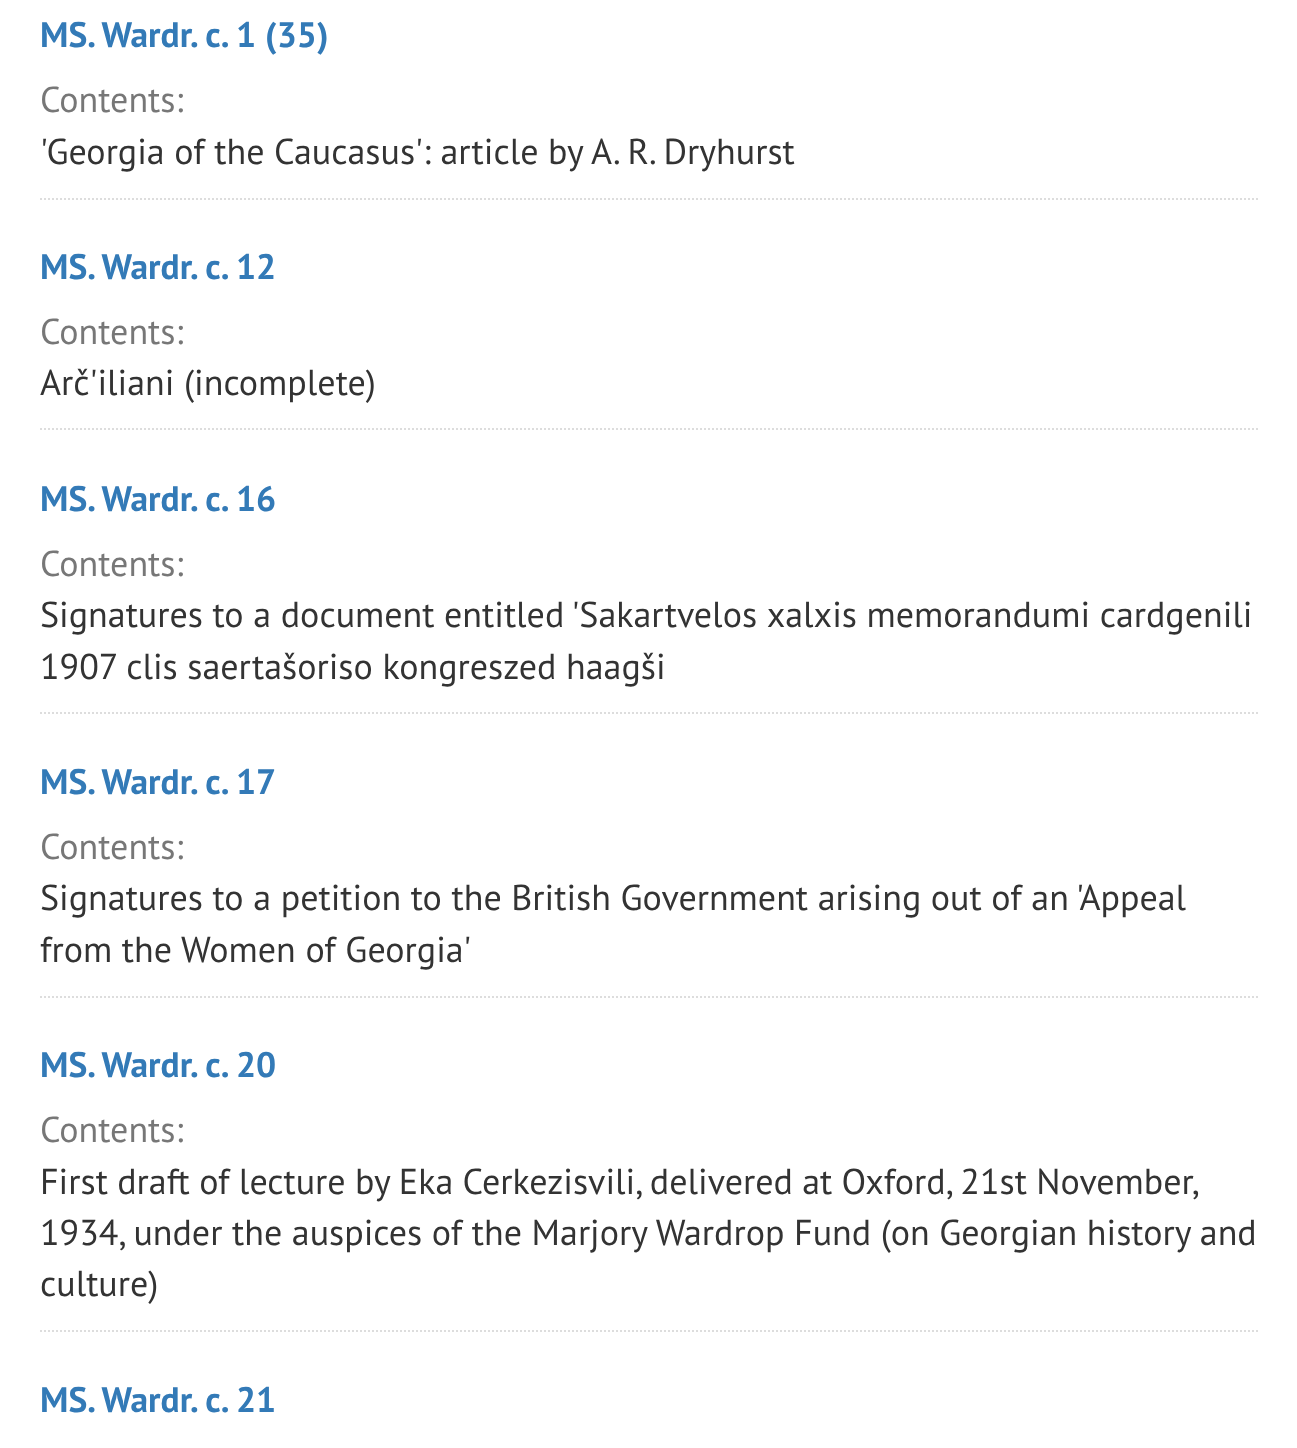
async function draw(canvas) {
  canvas.width = 1297
  canvas.height = 1448
  const ctx = canvas.getContext('2d')
  ctx.miterLimit = 4
  ctx.fontKerning = 'normal'

  ctx.fillStyle = '#fff'
  ctx.fillRect(0, 0, 1297, 1448)
  ctx.beginPath()
  ctx.moveTo(40, 199)
  ctx.lineTo(1258, 199)
  ctx.strokeStyle = '#ddd'
  ctx.lineWidth = 2
  ctx.setLineDash([2, 2])
  ctx.stroke()
  ctx.font = 'bold 35.5px PT Sans'
  ctx.fillStyle = '#337ab7'
  ctx.fillText('MS. Wardr. c. 1 (35)', 40, 47)
  ctx.font = '36px PT Sans'
  ctx.fillStyle = '#777'
  ctx.fillText('Contents:', 40, 112)
  ctx.fillStyle = '#333'
  ctx.fillText('\'Georgia of the Caucasus\': article by A. R. Dryhurst', 40, 164)
  ctx.beginPath()
  ctx.moveTo(40, 429)
  ctx.lineTo(1258, 429)
  ctx.stroke()
  ctx.font = 'bold 35.5px PT Sans'
  ctx.fillStyle = '#337ab7'
  ctx.fillText('MS. Wardr. c. 12', 40, 279)
  ctx.font = '36px PT Sans'
  ctx.fillStyle = '#777'
  ctx.fillText('Contents:', 40, 344)
  ctx.fillStyle = '#333'
  ctx.fillText('Arč\'iliani (incomplete)', 40, 395)
  ctx.beginPath()
  ctx.moveTo(40, 713)
  ctx.lineTo(1258, 713)
  ctx.stroke()
  ctx.font = 'bold 35.5px PT Sans'
  ctx.fillStyle = '#337ab7'
  ctx.fillText('MS. Wardr. c. 16', 40, 511)
  ctx.font = '36px PT Sans'
  ctx.fillStyle = '#777'
  ctx.fillText('Contents:', 40, 576)
  ctx.fillStyle = '#333'
  ctx.fillText('Signatures to a document entitled \'Sakartvelos xalxis memorandumi cardgenili', 40, 627)
  ctx.fillText('1907 clis saertašoriso kongreszed haagši', 40, 679)
  ctx.beginPath()
  ctx.moveTo(40, 997)
  ctx.lineTo(1258, 997)
  ctx.stroke()
  ctx.font = 'bold 35.5px PT Sans'
  ctx.fillStyle = '#337ab7'
  ctx.fillText('MS. Wardr. c. 17', 40, 794)
  ctx.font = '36px PT Sans'
  ctx.fillStyle = '#777'
  ctx.fillText('Contents:', 40, 859)
  ctx.fillStyle = '#333'
  ctx.fillText('Signatures to a petition to the British Government arising out of an \'Appeal', 40, 910)
  ctx.fillText('from the Women of Georgia\'', 40, 962)
  ctx.beginPath()
  ctx.moveTo(40, 1331)
  ctx.lineTo(1258, 1331)
  ctx.stroke()
  ctx.font = 'bold 35.5px PT Sans'
  ctx.fillStyle = '#337ab7'
  ctx.fillText('MS. Wardr. c. 20', 40, 1077)
  ctx.font = '36px PT Sans'
  ctx.fillStyle = '#777'
  ctx.fillText('Contents:', 40, 1142)
  ctx.wordSpacing = '-0.25px'
  ctx.fillStyle = '#333'
  ctx.fillText('First draft of lecture by Eka Cerkezisvili, delivered at Oxford, 21st November,', 40, 1194)
  ctx.wordSpacing = '0px'
  ctx.fillText('1934, under the auspices of the Marjory Wardrop Fund (on Georgian history and', 40, 1245)
  ctx.fillText('culture)', 40, 1296)
  ctx.font = 'bold 35.5px PT Sans'
  ctx.fillStyle = '#337ab7'
  ctx.fillText('MS. Wardr. c. 21', 40, 1412)
}

draw(document.querySelector('canvas'))
